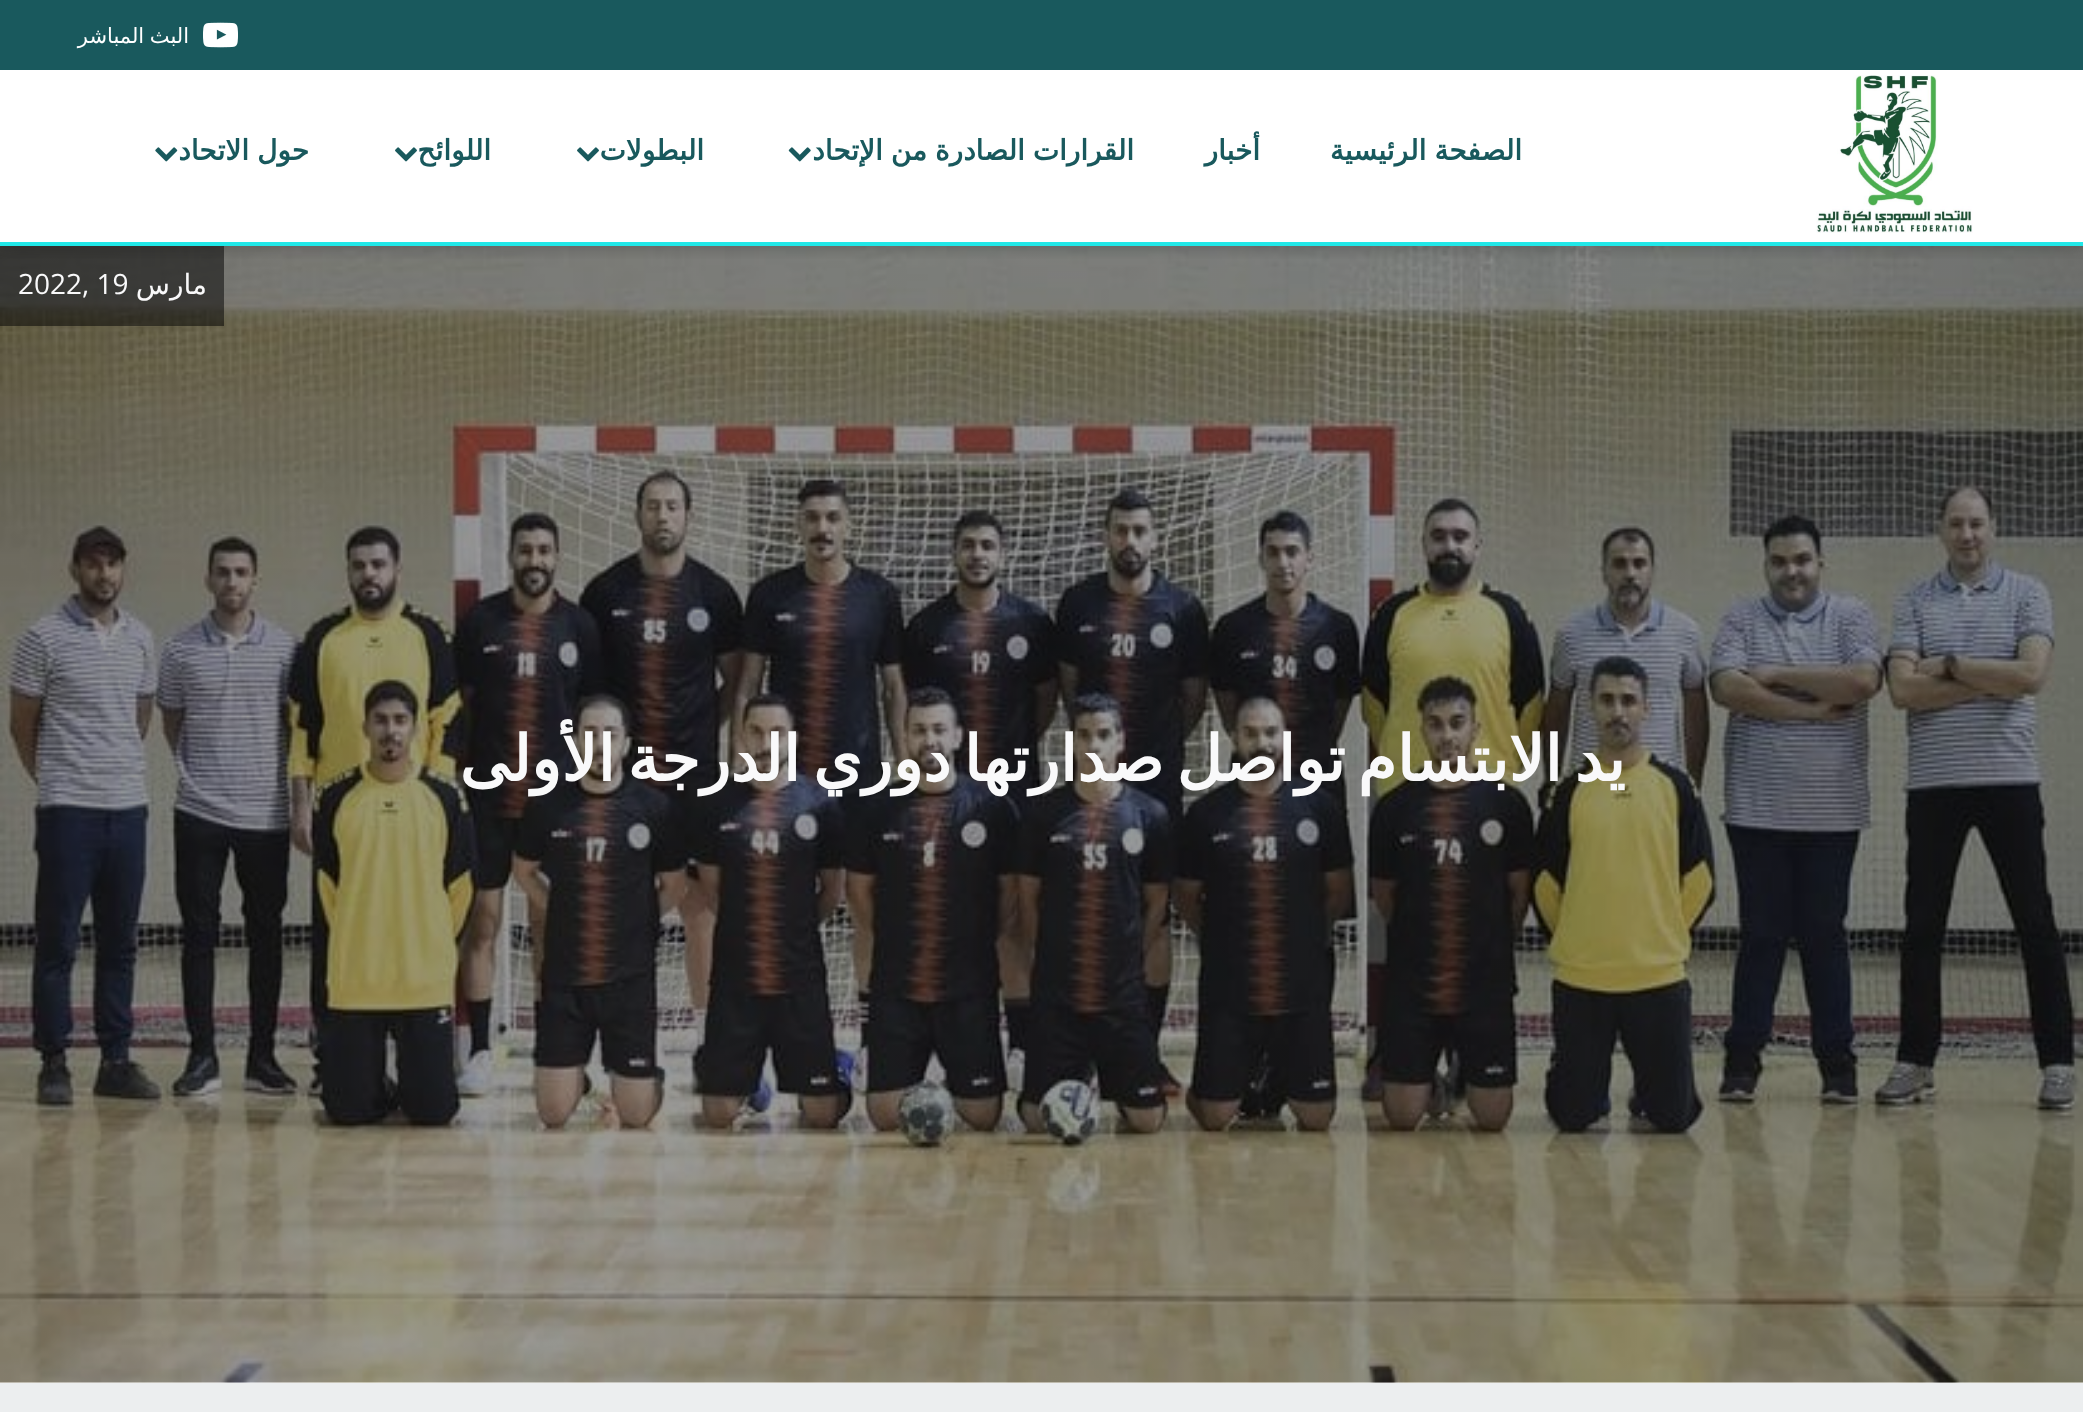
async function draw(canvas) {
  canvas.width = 2083
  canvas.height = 1412
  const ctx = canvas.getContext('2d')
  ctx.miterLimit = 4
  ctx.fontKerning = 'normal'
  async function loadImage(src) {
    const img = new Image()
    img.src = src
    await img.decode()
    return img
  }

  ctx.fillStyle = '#fff'
  ctx.fillRect(0, 0, 2083, 1412)
  ctx.drawImage(await loadImage('image5.png'), 0, 246, 2083, 1137)
  ctx.fillStyle = '#00000080'
  ctx.fillRect(0, 246, 224, 80)
  ctx.save()
  ctx.beginPath()
  ctx.rect(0, 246, 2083, 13)
  ctx.clip()
  ctx.fillStyle = '#0000004d'
  ctx.filter = 'blur(9px)'
  ctx.beginPath()
  ctx.rect(0, 0, 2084, 245)
  ctx.fill()
  ctx.filter = 'none'
  ctx.restore()
  ctx.fillStyle = '#19595d'
  ctx.fillRect(0, 0, 2083, 70)
  ctx.drawImage(await loadImage('image0.png'), 203, 22, 35, 26)
  ctx.wordSpacing = '-1px'
  ctx.direction = 'rtl'
  ctx.font = '21px DejaVu Sans'
  ctx.fillStyle = '#fff'
  ctx.fillText('البث المباشر', 189, 43)
  ctx.fillStyle = '#20e8e8'
  ctx.fillRect(0, 242, 2083, 4)
  ctx.drawImage(await loadImage('image1.png'), 1816, 75, 157, 158)
  ctx.font = 'bold 28px DejaVu Sans'
  ctx.fillStyle = '#19595d'
  ctx.fillText('الصفحة الرئيسية', 1522, 160)
  ctx.wordSpacing = '0px'
  ctx.fillText('أخبار', 1260, 160)
  ctx.wordSpacing = '-1px'
  ctx.fillText('القرارات الصادرة من الإتحاد', 1134, 160)
  ctx.drawImage(await loadImage('image2.png'), 788, 147, 23, 15)
  ctx.wordSpacing = '0px'
  ctx.fillText('البطولات', 704, 160)
  ctx.drawImage(await loadImage('image3.png'), 577, 147, 22, 15)
  ctx.fillText('اللوائح', 491, 160)
  ctx.drawImage(await loadImage('image3.png'), 395, 147, 22, 15)
  ctx.wordSpacing = '-1px'
  ctx.fillText('حول الاتحاد', 309, 160)
  ctx.drawImage(await loadImage('image4.png'), 155, 147, 23, 15)
  ctx.wordSpacing = '0px'
  ctx.font = '28px DejaVu Sans'
  ctx.fillStyle = '#f9f9fa'
  ctx.fillText('مارس', 207, 294)
  ctx.direction = 'ltr'
  ctx.font = '28px Open Sans'
  ctx.fillText('2022, 19', 18, 294)
  ctx.wordSpacing = '-7.5px'
  ctx.direction = 'rtl'
  ctx.font = 'bold 63px DejaVu Sans'
  ctx.fillText('يد الابتسام تواصل صدارتها دوري الدرجة الأولى', 1625, 781)
  ctx.fillStyle = '#eceeef'
  ctx.fillRect(0, 1383, 2083, 29)
}

draw(document.querySelector('canvas'))
